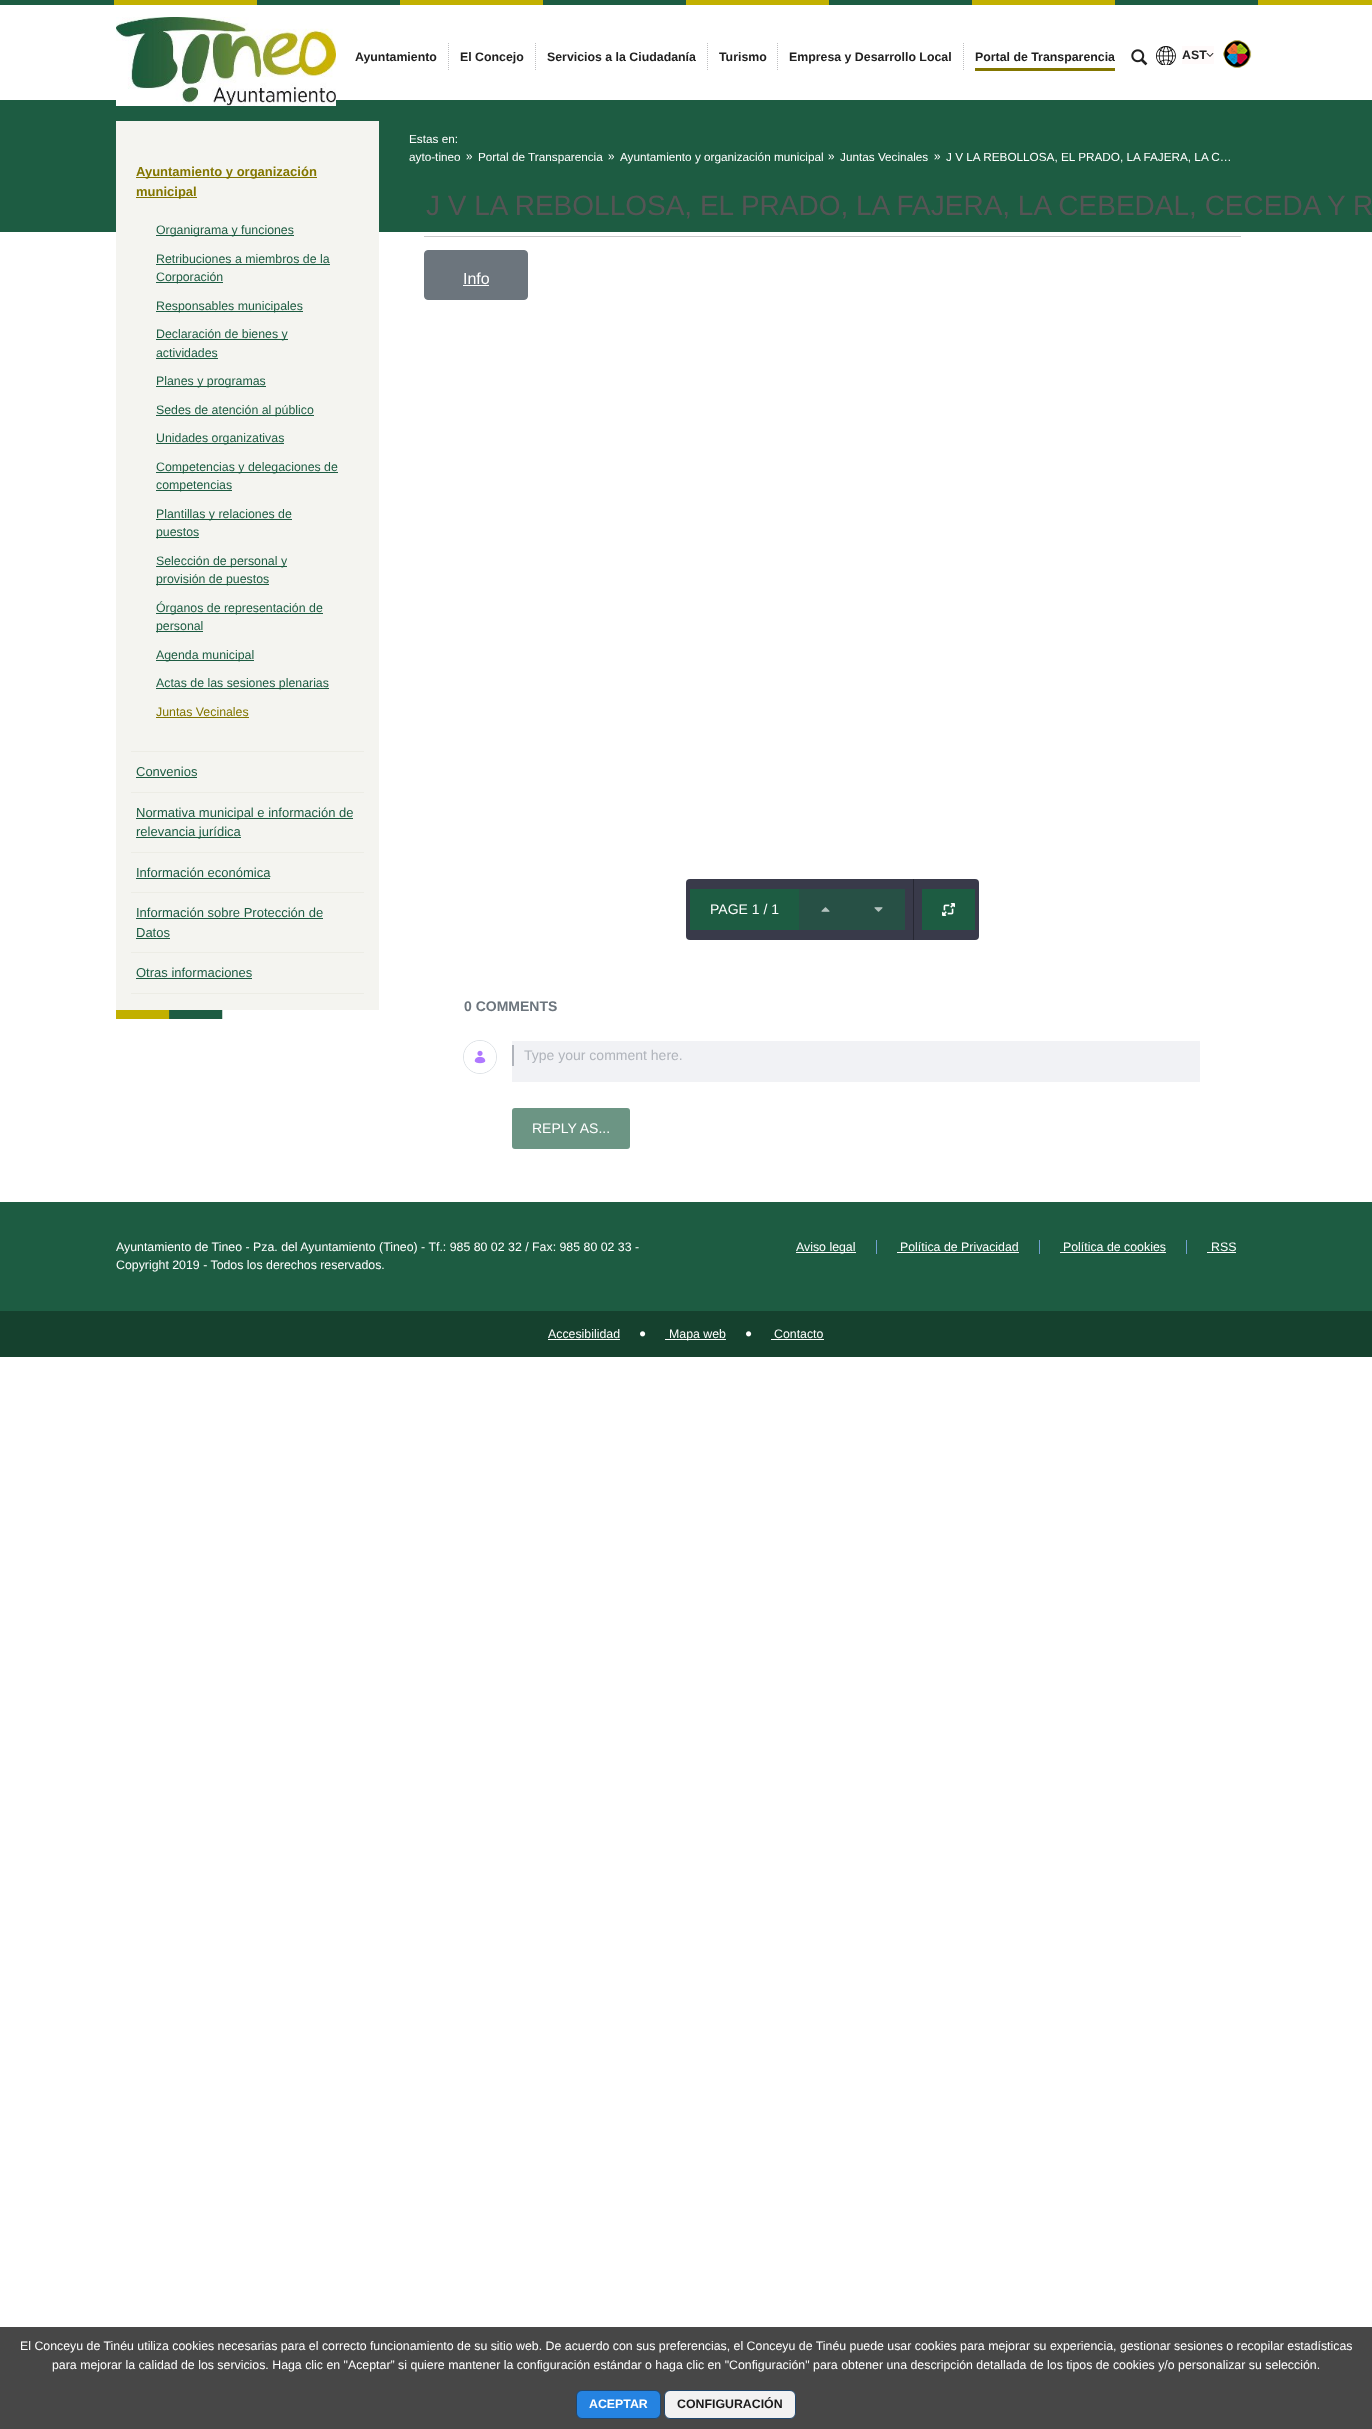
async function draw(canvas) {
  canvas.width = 1372
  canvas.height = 2429
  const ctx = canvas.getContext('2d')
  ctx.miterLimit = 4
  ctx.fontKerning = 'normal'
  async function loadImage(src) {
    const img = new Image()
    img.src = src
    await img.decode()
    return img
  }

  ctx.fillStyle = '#fff'
  ctx.fillRect(0, 0, 1372, 2429)
  ctx.drawImage(await loadImage('image0.png'), 0, 0, 1372, 5)
  ctx.fillStyle = '#1d5c42'
  ctx.fillRect(0, 100, 1372, 132)
  ctx.drawImage(await loadImage('image1.png'), 116, 17, 220, 89)
  ctx.beginPath()
  ctx.moveTo(448.5, 43)
  ctx.lineTo(448.5, 71)
  ctx.strokeStyle = '#bfbfc1'
  ctx.setLineDash([1, 1])
  ctx.stroke()
  ctx.font = 'bold 12.35px Liberation Sans'
  ctx.fillStyle = '#212121'
  ctx.fillText('Ayuntamiento', 355, 61)
  ctx.beginPath()
  ctx.moveTo(535.5, 43)
  ctx.lineTo(535.5, 71)
  ctx.stroke()
  ctx.fillText('El Concejo', 460, 61)
  ctx.beginPath()
  ctx.moveTo(707.5, 43)
  ctx.lineTo(707.5, 71)
  ctx.stroke()
  ctx.fillText('Servicios a la Ciudadanía', 547, 61)
  ctx.beginPath()
  ctx.moveTo(777.5, 43)
  ctx.lineTo(777.5, 71)
  ctx.stroke()
  ctx.fillText('Turismo', 719, 61)
  ctx.beginPath()
  ctx.moveTo(963.5, 43)
  ctx.lineTo(963.5, 71)
  ctx.stroke()
  ctx.fillText('Empresa y Desarrollo Local', 789, 61)
  ctx.fillText('Portal de Transparencia', 975, 61)
  ctx.fillStyle = '#837600'
  ctx.fillRect(975, 68, 140, 3)
  ctx.drawImage(await loadImage('image2.png'), 1131, 49, 17, 17)
  ctx.drawImage(await loadImage('image3.png'), 1156, 46, 20, 19)
  ctx.fillStyle = '#fffafa'
  ctx.fillRect(1182, 46, 32, 18)
  ctx.fillStyle = '#212121'
  ctx.fillText('AST', 1182, 59)
  ctx.drawImage(await loadImage('image4.png'), 1206, 53, 8, 4)
  ctx.drawImage(await loadImage('image5.png'), 1223, 40, 29, 28)
  ctx.fillStyle = '#f4f4f0'
  ctx.fillRect(116, 121, 263, 889)
  ctx.drawImage(await loadImage('image6.png'), 116, 1010, 263, 9)
  ctx.fillStyle = '#ecece5'
  ctx.fillRect(131, 751, 233, 1)
  ctx.fillStyle = '#837600'
  ctx.fillRect(136, 177, 181, 1)
  ctx.font = 'bold 13px Liberation Sans'
  ctx.fillText('Ayuntamiento y organización', 136, 176)
  ctx.fillRect(136, 197, 61, 1)
  ctx.fillText('municipal', 136, 196)
  ctx.fillStyle = '#1d5c42'
  ctx.fillRect(156, 235, 138, 1)
  ctx.font = '12.35px Liberation Sans'
  ctx.fillText('Organigrama y funciones', 156, 234)
  ctx.fillText('Retribuciones a miembros de la', 156, 263)
  ctx.fillRect(156, 264, 174, 1)
  ctx.fillRect(156, 282, 67, 1)
  ctx.fillText('Corporación', 156, 281)
  ctx.fillRect(156, 311, 147, 1)
  ctx.fillText('Responsables municipales', 156, 310)
  ctx.fillRect(156, 339, 132, 1)
  ctx.fillText('Declaración de bienes y', 156, 338)
  ctx.fillText('actividades', 156, 357)
  ctx.fillRect(156, 358, 62, 1)
  ctx.fillRect(156, 386, 110, 1)
  ctx.fillText('Planes y programas', 156, 385)
  ctx.fillRect(156, 415, 158, 1)
  ctx.fillText('Sedes de atención al público', 156, 414)
  ctx.fillRect(156, 443, 128, 1)
  ctx.fillText('Unidades organizativas', 156, 442)
  ctx.fillRect(156, 472, 182, 1)
  ctx.fillText('Competencias y delegaciones de', 156, 471)
  ctx.fillRect(156, 490, 76, 1)
  ctx.fillText('competencias', 156, 489)
  ctx.fillRect(156, 519, 136, 1)
  ctx.fillText('Plantillas y relaciones de', 156, 518)
  ctx.fillRect(156, 537, 43, 1)
  ctx.fillText('puestos', 156, 536)
  ctx.fillRect(156, 566, 131, 1)
  ctx.fillText('Selección de personal y', 156, 565)
  ctx.fillRect(156, 584, 113, 1)
  ctx.fillText('provisión de puestos', 156, 583)
  ctx.fillRect(156, 613, 167, 1)
  ctx.fillText('Órganos de representación de', 156, 612)
  ctx.fillRect(156, 631, 47, 1)
  ctx.fillText('personal', 156, 630)
  ctx.fillRect(156, 660, 98, 1)
  ctx.fillText('Agenda municipal', 156, 659)
  ctx.fillRect(156, 688, 173, 1)
  ctx.fillText('Actas de las sesiones plenarias', 156, 687)
  ctx.fillStyle = '#837600'
  ctx.fillText('Juntas Vecinales', 156, 716)
  ctx.fillRect(156, 717, 93, 1)
  ctx.fillStyle = '#ecece5'
  ctx.fillRect(131, 792, 233, 1)
  ctx.font = '13px Liberation Sans'
  ctx.fillStyle = '#1d5c42'
  ctx.fillText('Convenios', 136, 776)
  ctx.fillRect(136, 777, 61, 1)
  ctx.fillStyle = '#ecece5'
  ctx.fillRect(131, 852, 233, 1)
  ctx.fillStyle = '#1d5c42'
  ctx.fillRect(136, 818, 217, 1)
  ctx.fillText('Normativa municipal e información de', 136, 817)
  ctx.fillRect(136, 837, 105, 1)
  ctx.fillText('relevancia jurídica', 136, 836)
  ctx.fillStyle = '#ecece5'
  ctx.fillRect(131, 892, 233, 1)
  ctx.fillStyle = '#1d5c42'
  ctx.fillText('Información económica', 136, 877)
  ctx.fillRect(136, 878, 134, 1)
  ctx.fillStyle = '#ecece5'
  ctx.fillRect(131, 952, 233, 1)
  ctx.fillStyle = '#1d5c42'
  ctx.fillText('Información sobre Protección de', 136, 917)
  ctx.fillRect(136, 918, 187, 1)
  ctx.fillText('Datos', 136, 937)
  ctx.fillRect(136, 938, 34, 1)
  ctx.fillStyle = '#ecece5'
  ctx.fillRect(131, 993, 233, 1)
  ctx.fillStyle = '#1d5c42'
  ctx.fillText('Otras informaciones', 136, 977)
  ctx.fillRect(136, 978, 116, 1)
  ctx.font = '11.75px Liberation Sans'
  ctx.fillStyle = '#fff'
  ctx.fillText('Estas en:', 409, 143)
  ctx.fillText('ayto-tineo', 409, 161)
  ctx.fillText('»', 466, 160)
  ctx.fillText('Portal de Transparencia', 478, 161)
  ctx.fillText('»', 608, 160)
  ctx.fillText('Ayuntamiento y organización municipal', 620, 161)
  ctx.fillText('»', 828, 160)
  ctx.fillText('Juntas Vecinales', 840, 161)
  ctx.fillText('»', 934, 160)
  ctx.fillText('J V LA REBOLLOSA, EL PRADO, LA FAJERA, LA C…', 946, 161)
  ctx.fillStyle = '#c8c9ca'
  ctx.fillRect(424, 236, 817, 1)
  ctx.font = '28px Liberation Sans'
  ctx.fillStyle = '#555'
  ctx.fillText('J V LA REBOLLOSA, EL PRADO, LA FAJERA, LA CEBEDAL, CECEDA Y R', 426, 215)
  ctx.fillStyle = '#6c757d'
  ctx.beginPath()
  ctx.roundRect(424.5, 250.5, 103, 49, 3.5)
  ctx.fill()
  ctx.strokeStyle = '#6c757d'
  ctx.setLineDash([])
  ctx.stroke()
  ctx.font = '16px Liberation Sans'
  ctx.fillStyle = '#fff'
  ctx.fillText('Info', 463, 284)
  ctx.fillRect(463, 285, 26, 1)
  ctx.fillStyle = '#393a4a'
  ctx.beginPath()
  ctx.roundRect(686, 879, 293, 61, 4)
  ctx.fill()
  ctx.fillStyle = '#1d5c42'
  ctx.fillRect(690, 889, 109, 41)
  ctx.font = '14px Liberation Sans'
  ctx.fillStyle = '#fff'
  ctx.fillText('PAGE 1 / 1', 710, 914)
  ctx.fillStyle = '#275045'
  ctx.fillRect(799, 889, 106, 41)
  ctx.drawImage(await loadImage('image7.png'), 821, 907, 9, 5)
  ctx.fillStyle = '#272833'
  ctx.fillRect(913, 879, 1, 61)
  ctx.fillStyle = '#1d5c42'
  ctx.fillRect(922, 889, 53, 41)
  ctx.drawImage(await loadImage('image8.png'), 942, 903, 13, 13)
  ctx.drawImage(await loadImage('image9.png'), 874, 907, 9, 5)
  ctx.font = 'bold 14px Liberation Sans'
  ctx.fillStyle = '#6c757d'
  ctx.fillText('0 COMMENTS', 464, 1011)
  ctx.beginPath()
  ctx.arc(480, 1057, 16.5, 0, 2 * Math.PI)
  ctx.strokeStyle = '#dee2e6'
  ctx.stroke()
  ctx.fillStyle = '#fff'
  ctx.beginPath()
  ctx.arc(480, 1057, 16, 0, 2 * Math.PI)
  ctx.fill()
  ctx.drawImage(await loadImage('image10.png'), 474, 1050, 12, 14)
  ctx.fillStyle = '#f1f2f5'
  ctx.fillRect(512, 1041, 688, 41)
  ctx.fillStyle = '#b0b4bb'
  ctx.fillRect(512, 1045, 2, 21)
  ctx.font = '14px Liberation Sans'
  ctx.fillText('Type your comment here.', 524, 1060)
  ctx.fillStyle = '#6c9584'
  ctx.beginPath()
  ctx.roundRect(512, 1108, 118, 41, 3)
  ctx.fill()
  ctx.fillStyle = '#fff'
  ctx.fillText('REPLY AS...', 532, 1133)
  ctx.fillStyle = '#1d5c42'
  ctx.fillRect(0, 1202, 1372, 109)
  ctx.font = '12.35px Liberation Sans'
  ctx.fillStyle = '#fff'
  ctx.fillText('Ayuntamiento de Tineo - Pza. del Ayuntamiento (Tineo) - Tf.: 985 80 02 32 / Fax: 985 80 02 33 -', 116, 1251)
  ctx.fillText('Copyright 2019 - Todos los derechos reservados.', 116, 1269)
  ctx.fillRect(796, 1252, 60, 1)
  ctx.fillText('Aviso legal', 796, 1251)
  ctx.fillStyle = '#71a1d0'
  ctx.fillRect(876, 1240, 1, 14)
  ctx.fillStyle = '#fff'
  ctx.fillText('Política de Privacidad', 900, 1251)
  ctx.fillStyle = '#71a1d0'
  ctx.fillRect(1039, 1240, 1, 14)
  ctx.fillStyle = '#fff'
  ctx.fillRect(897, 1252, 122, 1)
  ctx.fillText('Política de cookies', 1063, 1251)
  ctx.fillStyle = '#71a1d0'
  ctx.fillRect(1186, 1240, 1, 14)
  ctx.fillStyle = '#fff'
  ctx.fillRect(1060, 1252, 106, 1)
  ctx.fillText('RSS', 1211, 1251)
  ctx.fillRect(1207, 1252, 29, 1)
  ctx.fillStyle = '#15412e'
  ctx.fillRect(0, 1311, 1372, 46)
  ctx.fillStyle = '#fff'
  ctx.fillText('Accesibilidad', 548, 1338)
  ctx.fillRect(548, 1339, 72, 1)
  ctx.drawImage(await loadImage('image11.png'), 640, 1331, 6, 6)
  ctx.fillRect(665, 1339, 61, 1)
  ctx.fillText('Mapa web', 669, 1338)
  ctx.drawImage(await loadImage('image11.png'), 746, 1331, 6, 6)
  ctx.fillText('Contacto', 774, 1338)
  ctx.fillRect(771, 1339, 53, 1)
  ctx.fillStyle = '#474747'
  ctx.fillRect(0, 2327, 1372, 102)
  ctx.fillStyle = '#fff'
  ctx.fillText('El Conceyu de Tinéu utiliza cookies necesarias para el correcto funcionamiento de su sitio web. De acuerdo con sus preferencias, el Conceyu de Tinéu puede usar cookies para mejorar su experiencia, gestionar sesiones o recopilar estadísticas', 20, 2350)
  ctx.fillText('para mejorar la calidad de los servicios. Haga clic en "Aceptar” si quiere mantener la configuración estándar o haga clic en "Configuración" para obtener una descripción detallada de los tipos de cookies y/o personalizar su selección.', 52, 2369)
  ctx.fillStyle = '#2583e1'
  ctx.beginPath()
  ctx.roundRect(576.5, 2390.5, 84, 28, 5.5)
  ctx.fill()
  ctx.strokeStyle = '#21476d'
  ctx.stroke()
  ctx.font = 'bold 12.35px Liberation Sans'
  ctx.fillStyle = '#fff'
  ctx.fillText('ACEPTAR', 589, 2408)
  ctx.fillStyle = '#f2f2f2'
  ctx.beginPath()
  ctx.roundRect(664.5, 2390.5, 131, 28, 5.5)
  ctx.fill()
  ctx.stroke()
  ctx.fillStyle = '#1a1a1a'
  ctx.fillText('CONFIGURACIÓN', 677, 2408)
}

draw(document.querySelector('canvas'))
